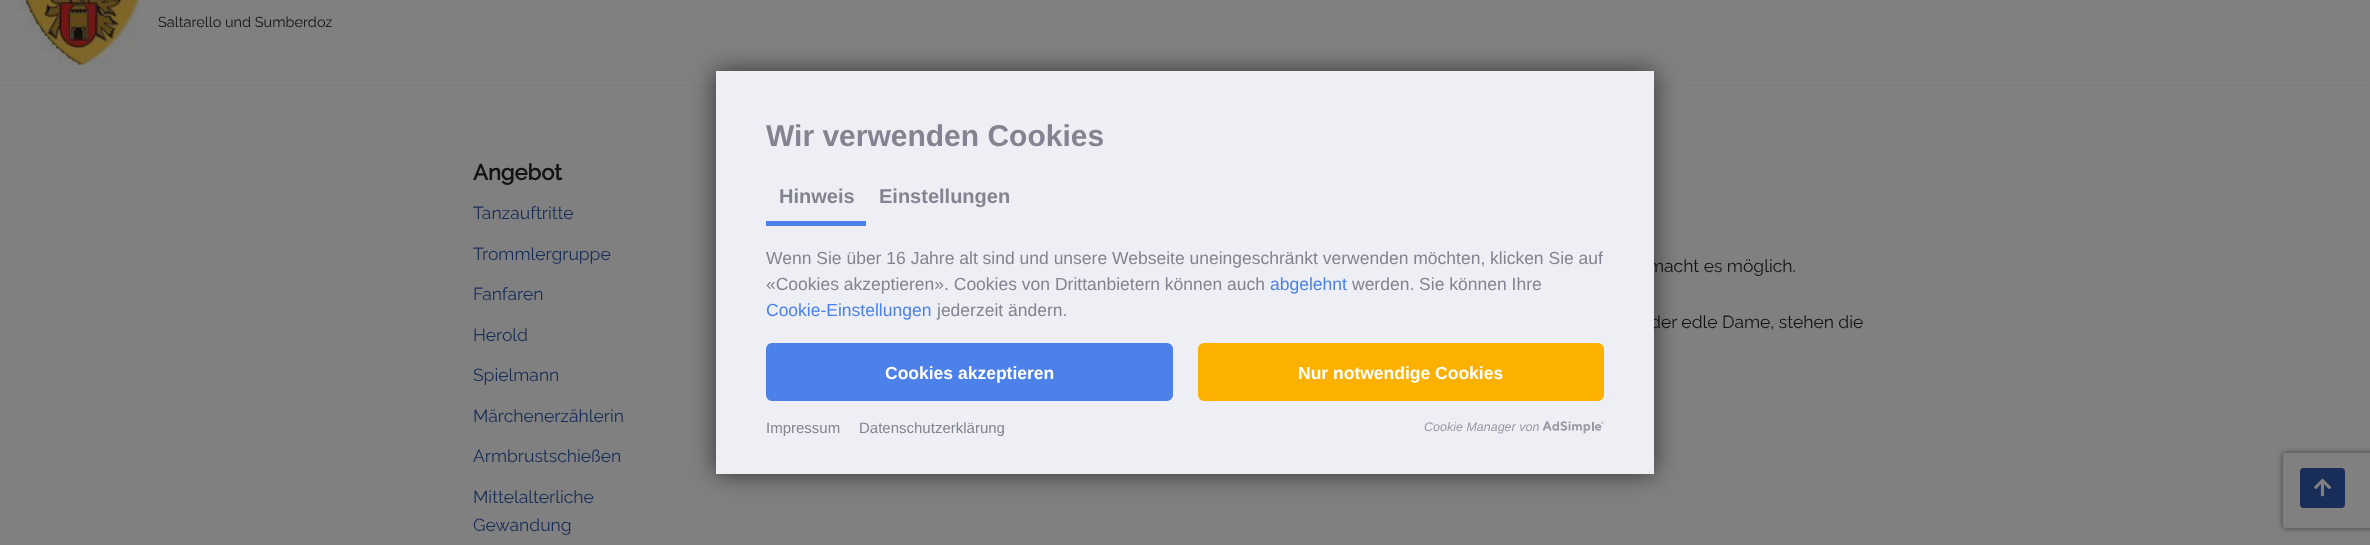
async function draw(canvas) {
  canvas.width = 2370
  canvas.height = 545
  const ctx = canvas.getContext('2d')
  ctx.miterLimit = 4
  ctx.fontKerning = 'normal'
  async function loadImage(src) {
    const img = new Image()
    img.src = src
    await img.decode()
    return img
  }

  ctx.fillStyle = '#808080'
  ctx.fillRect(0, 0, 2370, 545)
  ctx.fillStyle = '#0000001a'
  ctx.filter = 'blur(2px)'
  ctx.beginPath()
  ctx.rect(0, -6, 2370, 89)
  ctx.fill()
  ctx.filter = 'none'
  ctx.fillStyle = '#808080'
  ctx.fillRect(0, 0, 2370, 84)
  ctx.drawImage(await loadImage('image0.png'), 18, 0, 127, 65)
  ctx.font = '14.5px Raleway'
  ctx.fillStyle = '#141313'
  ctx.fillText('Saltarello und Sumberdoz', 158, 27)
  ctx.font = 'bold 22px Raleway'
  ctx.fillText('Angebot', 473, 180)
  ctx.font = '17.5px Raleway'
  ctx.fillStyle = '#182d57'
  ctx.fillText('Tanzauftritte', 473, 219)
  ctx.fillText('Trommlergruppe', 473, 260)
  ctx.fillText('Fanfaren', 473, 300)
  ctx.fillText('Herold', 473, 341)
  ctx.fillText('Spielmann', 473, 381)
  ctx.fillText('Märchenerzählerin', 473, 422)
  ctx.fillText('Armbrustschießen', 473, 462)
  ctx.fillText('Mittelalterliche', 473, 503)
  ctx.fillText('Gewandung', 473, 531)
  ctx.fillStyle = '#141313'
  ctx.fillText('macht es möglich.', 1648, 272)
  ctx.fillText('der edle Dame, stehen die', 1650, 328)
  ctx.save()
  ctx.beginPath()
  ctx.moveTo(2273, 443)
  ctx.lineTo(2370, 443)
  ctx.lineTo(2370, 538)
  ctx.lineTo(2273, 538)
  ctx.closePath()
  ctx.moveTo(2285.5, 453)
  ctx.lineTo(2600.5, 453)
  ctx.bezierCurveTo(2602, 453, 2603, 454, 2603, 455.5)
  ctx.lineTo(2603, 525.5)
  ctx.bezierCurveTo(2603, 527, 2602, 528, 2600.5, 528)
  ctx.lineTo(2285.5, 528)
  ctx.bezierCurveTo(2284, 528, 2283, 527, 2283, 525.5)
  ctx.lineTo(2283, 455.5)
  ctx.bezierCurveTo(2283, 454, 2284, 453, 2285.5, 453)
  ctx.closePath()
  ctx.clip('evenodd')
  ctx.fillStyle = '#404040'
  ctx.filter = 'blur(3px)'
  ctx.beginPath()
  ctx.roundRect(2283, 453, 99, 75, 2.5)
  ctx.fill()
  ctx.filter = 'none'
  ctx.restore()
  ctx.fillStyle = '#182d57'
  ctx.beginPath()
  ctx.roundRect(2300, 468, 45, 40, 4)
  ctx.fill()
  ctx.drawImage(await loadImage('image1.png'), 2314, 478, 17, 19)
  ctx.fillStyle = '#00000099'
  ctx.filter = 'blur(12.5px)'
  ctx.beginPath()
  ctx.rect(716, 71, 938, 403)
  ctx.fill()
  ctx.filter = 'none'
  ctx.fillStyle = '#edeff5'
  ctx.fillRect(716, 71, 938, 403)
  ctx.font = 'bold 30px Liberation Sans'
  ctx.fillStyle = '#838391'
  ctx.fillText('Wir verwenden Cookies', 766, 146)
  ctx.fillStyle = '#4b81e8'
  ctx.fillRect(766, 221, 100, 5)
  ctx.font = 'bold 20px Liberation Sans'
  ctx.fillStyle = '#838391'
  ctx.fillText('Hinweis', 779, 203)
  ctx.fillText('Einstellungen', 879, 203)
  ctx.font = '17.5px Liberation Sans'
  ctx.fillText('Wenn Sie über 16 Jahre alt sind und unsere Webseite uneingeschränkt verwenden möchten, klicken Sie auf', 766, 264)
  ctx.fillText('«Cookies akzeptieren». Cookies von Drittanbietern können auch', 766, 290)
  ctx.fillStyle = '#4b81e8'
  ctx.fillText('abgelehnt', 1270, 290)
  ctx.fillStyle = '#838391'
  ctx.fillText('werden. Sie können Ihre', 1352, 290)
  ctx.fillStyle = '#4b81e8'
  ctx.fillText('Cookie-Einstellungen', 766, 316)
  ctx.fillStyle = '#838391'
  ctx.fillText('jederzeit ändern.', 937, 316)
  ctx.fillStyle = '#4b81e8'
  ctx.beginPath()
  ctx.roundRect(767.5, 344.5, 404, 55, 4.5)
  ctx.fill()
  ctx.strokeStyle = '#4b81e8'
  ctx.lineWidth = 3
  ctx.stroke()
  ctx.font = 'bold 17.5px Liberation Sans'
  ctx.fillStyle = '#fff'
  ctx.fillText('Cookies akzeptieren', 885, 379)
  ctx.fillStyle = '#fcb100'
  ctx.beginPath()
  ctx.roundRect(1199.5, 344.5, 403, 55, 4.5)
  ctx.fill()
  ctx.strokeStyle = '#fcb100'
  ctx.stroke()
  ctx.fillStyle = '#fff'
  ctx.fillText('Nur notwendige Cookies', 1298, 379)
  ctx.font = '15px Liberation Sans'
  ctx.fillStyle = '#838391'
  ctx.fillText('Impressum', 766, 433)
  ctx.fillText('Datenschutzerklärung', 859, 433)
  ctx.font = 'italic 12.5px Liberation Sans'
  ctx.fillStyle = '#9899a5'
  ctx.fillText('Cookie Manager von', 1424, 431)
  ctx.drawImage(await loadImage('image2.png'), 1543, 421, 61, 13)
}

draw(document.querySelector('canvas'))
